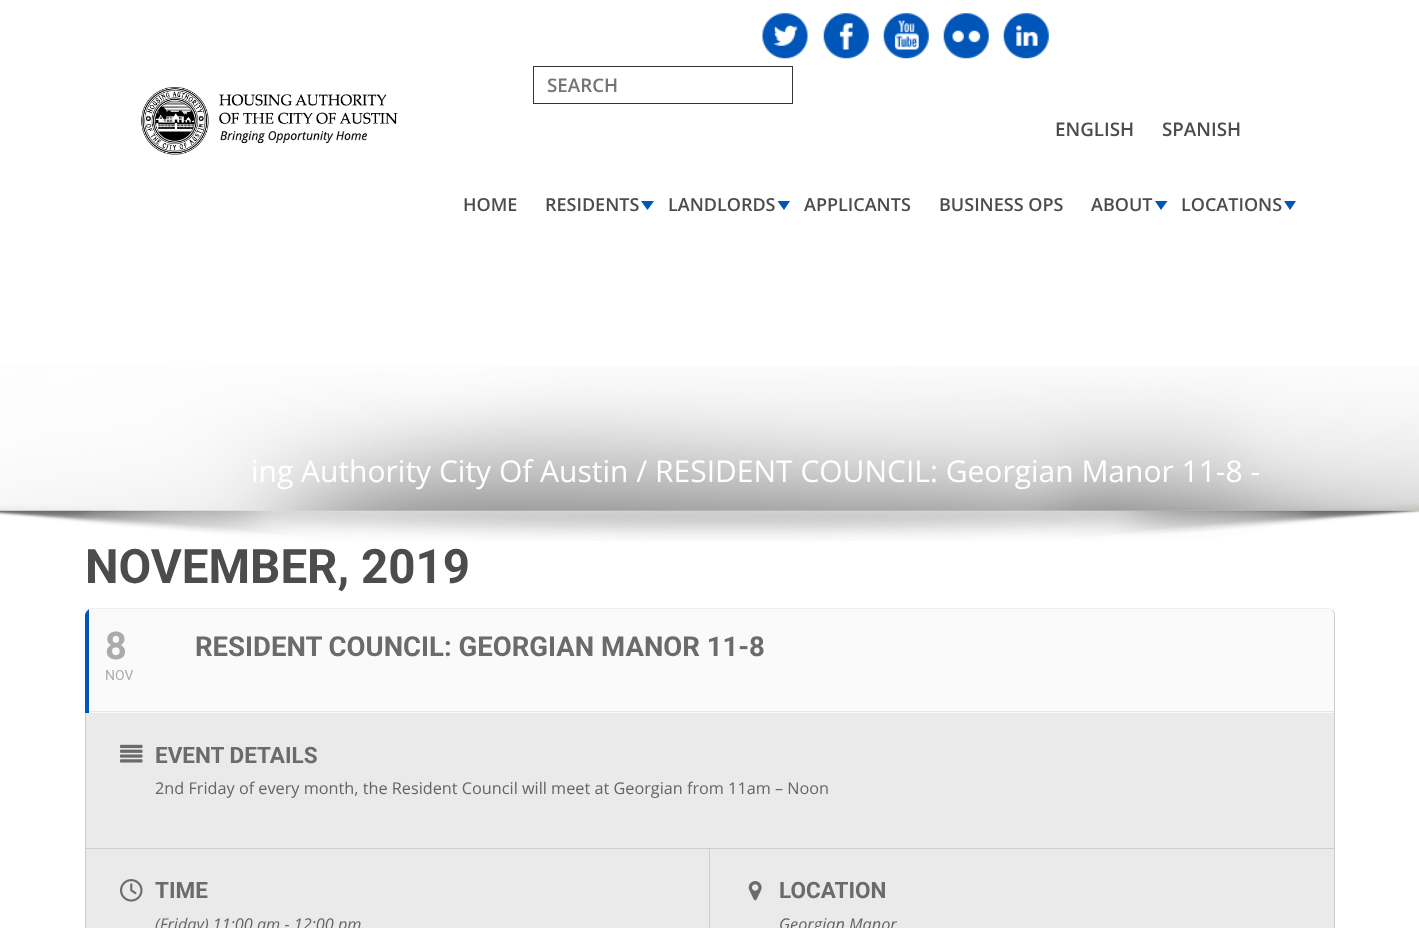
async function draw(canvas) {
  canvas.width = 1419
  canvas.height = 928
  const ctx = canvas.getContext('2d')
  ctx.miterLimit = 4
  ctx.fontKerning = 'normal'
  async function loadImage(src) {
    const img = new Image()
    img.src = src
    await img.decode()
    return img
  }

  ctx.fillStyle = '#fff'
  ctx.fillRect(0, 0, 1419, 928)
  ctx.drawImage(await loadImage('image0.png'), 141, 87, 257, 68)
  ctx.drawImage(await loadImage('image1.png'), 762, 13, 46, 46)
  ctx.drawImage(await loadImage('image2.png'), 823, 13, 46, 46)
  ctx.drawImage(await loadImage('image3.png'), 883, 13, 46, 46)
  ctx.drawImage(await loadImage('image4.png'), 943, 13, 46, 46)
  ctx.drawImage(await loadImage('image5.png'), 1003, 13, 46, 46)
  ctx.strokeStyle = '#353433'
  ctx.strokeRect(533.5, 66.5, 259, 37)
  ctx.font = '600 18.75px Open Sans'
  ctx.fillStyle = '#757575'
  ctx.fillText('SEARCH', 547, 92)
  ctx.fillStyle = '#4d4b4d'
  ctx.fillText('ENGLISH', 1055, 136)
  ctx.fillText('SPANISH', 1162, 136)
  ctx.font = '600 18px Open Sans'
  ctx.fillText('HOME', 463, 211)
  ctx.fillText('RESIDENTS', 545, 211)
  ctx.fillStyle = '#0055b8'
  ctx.beginPath()
  ctx.moveTo(641, 201)
  ctx.lineTo(654, 201)
  ctx.lineTo(647.5, 210)
  ctx.closePath()
  ctx.fill()
  ctx.fillStyle = '#4d4b4d'
  ctx.fillText('LANDLORDS', 668, 211)
  ctx.fillStyle = '#0055b8'
  ctx.beginPath()
  ctx.moveTo(777.5, 201)
  ctx.lineTo(790, 201)
  ctx.lineTo(784, 210)
  ctx.closePath()
  ctx.fill()
  ctx.fillStyle = '#4d4b4d'
  ctx.fillText('APPLICANTS', 804, 211)
  ctx.fillText('BUSINESS OPS', 939, 211)
  ctx.fillText('ABOUT', 1091, 211)
  ctx.fillStyle = '#0055b8'
  ctx.beginPath()
  ctx.moveTo(1155, 201)
  ctx.lineTo(1167.5, 201)
  ctx.lineTo(1161, 210)
  ctx.closePath()
  ctx.fill()
  ctx.fillStyle = '#4d4b4d'
  ctx.fillText('LOCATIONS', 1181, 211)
  ctx.fillStyle = '#0055b8'
  ctx.beginPath()
  ctx.moveTo(1284, 201)
  ctx.lineTo(1296, 201)
  ctx.lineTo(1290, 210)
  ctx.closePath()
  ctx.fill()
  ctx.drawImage(await loadImage('image6.png'), 0, 366, 1419, 145)
  ctx.font = '30px Open Sans'
  ctx.fillStyle = '#fff'
  ctx.fillText('ing Authority City Of Austin / RESIDENT COUNCIL: Georgian Manor 11-8 -', 251, 482)
  ctx.drawImage(await loadImage('image7.png'), 0, 510, 1419, 31)
  ctx.font = 'bold 47.5px Roboto'
  ctx.fillStyle = '#4d4b4d'
  ctx.fillText('NOVEMBER, 2019', 85, 583)
  ctx.fillStyle = '#efeeee'
  ctx.beginPath()
  ctx.moveTo(92, 608)
  ctx.lineTo(1328, 608)
  ctx.bezierCurveTo(1330, 608, 1332, 609, 1333, 610)
  ctx.lineTo(1332, 611)
  ctx.bezierCurveTo(1331, 610, 1329, 609, 1328, 609)
  ctx.lineTo(92, 609)
  ctx.bezierCurveTo(88, 609, 85, 612, 85, 615)
  ctx.bezierCurveTo(85, 611, 88, 608, 92, 608)
  ctx.closePath()
  ctx.fill()
  ctx.fillStyle = '#cdcdcd'
  ctx.beginPath()
  ctx.moveTo(1329, 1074)
  ctx.bezierCurveTo(1332, 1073, 1334, 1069, 1334, 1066)
  ctx.lineTo(1334, 615)
  ctx.bezierCurveTo(1334, 613, 1333, 612, 1332, 611)
  ctx.lineTo(1333, 610)
  ctx.bezierCurveTo(1334, 611, 1335, 613, 1335, 615)
  ctx.lineTo(1335, 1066)
  ctx.bezierCurveTo(1335, 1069, 1333, 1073, 1330, 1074)
  ctx.closePath()
  ctx.fill()
  ctx.fillStyle = '#fafafa'
  ctx.beginPath()
  ctx.moveTo(85, 615)
  ctx.lineTo(85, 713)
  ctx.lineTo(1334, 713)
  ctx.lineTo(1334, 615)
  ctx.bezierCurveTo(1334, 612, 1332, 610, 1329, 609)
  ctx.lineTo(90, 609)
  ctx.bezierCurveTo(87, 610, 85, 612, 85, 615)
  ctx.closePath()
  ctx.fill()
  ctx.fillStyle = '#0056b8'
  ctx.beginPath()
  ctx.moveTo(85, 615)
  ctx.lineTo(85, 713)
  ctx.lineTo(89, 713)
  ctx.lineTo(89, 609)
  ctx.bezierCurveTo(87, 611, 85, 613, 85, 615)
  ctx.closePath()
  ctx.fill()
  ctx.font = 'bold 38px Roboto'
  ctx.fillStyle = '#ababab'
  ctx.fillText('8', 105, 659)
  ctx.font = '14px Roboto'
  ctx.fillText('NOV', 105, 680)
  ctx.font = 'bold 27.5px Roboto'
  ctx.fillStyle = '#6b6b6b'
  ctx.fillText('RESIDENT COUNCIL: GEORGIAN MANOR 11-8', 195, 656)
  ctx.fillStyle = '#e5e5e5'
  ctx.fillRect(89, 711, 1245, 1)
  ctx.fillStyle = '#eaeaea'
  ctx.beginPath()
  ctx.moveTo(85, 713)
  ctx.lineTo(85, 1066)
  ctx.bezierCurveTo(85, 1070, 88, 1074, 92, 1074)
  ctx.lineTo(1328, 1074)
  ctx.bezierCurveTo(1331, 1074, 1334, 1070, 1334, 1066)
  ctx.lineTo(1334, 713)
  ctx.closePath()
  ctx.fill()
  ctx.fillStyle = '#cdcdcd'
  ctx.beginPath()
  ctx.moveTo(85, 713)
  ctx.lineTo(85, 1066)
  ctx.lineTo(86, 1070)
  ctx.lineTo(86, 713)
  ctx.closePath()
  ctx.fill()
  ctx.fillRect(86, 848, 1248, 1)
  ctx.drawImage(await loadImage('image8.png'), 120, 744, 23, 19)
  ctx.font = 'bold 22.5px Roboto'
  ctx.fillStyle = '#6b6b6b'
  ctx.fillText('EVENT DETAILS', 155, 763)
  ctx.font = '16.25px Open Sans'
  ctx.fillStyle = '#656565'
  ctx.fillText('2nd Friday of every month, the Resident Council will meet at Georgian from 11am – Noon', 155, 794)
  ctx.fillStyle = '#cdcdcd'
  ctx.fillRect(709, 849, 1, 79)
  ctx.drawImage(await loadImage('image9.png'), 120, 879, 23, 23)
  ctx.font = 'bold 22.5px Roboto'
  ctx.fillStyle = '#6b6b6b'
  ctx.fillText('TIME', 155, 898)
  ctx.font = 'italic 16.25px Open Sans'
  ctx.fillStyle = '#656565'
  ctx.fillText('(Friday) 11:00 am - 12:00 pm', 155, 930)
  ctx.drawImage(await loadImage('image10.png'), 748, 881, 14, 20)
  ctx.font = 'bold 22.5px Roboto'
  ctx.fillStyle = '#6b6b6b'
  ctx.fillText('LOCATION', 779, 898)
  ctx.font = 'italic 16.25px Open Sans'
  ctx.fillStyle = '#656565'
  ctx.fillText('Georgian Manor', 779, 930)
}

draw(document.querySelector('canvas'))
